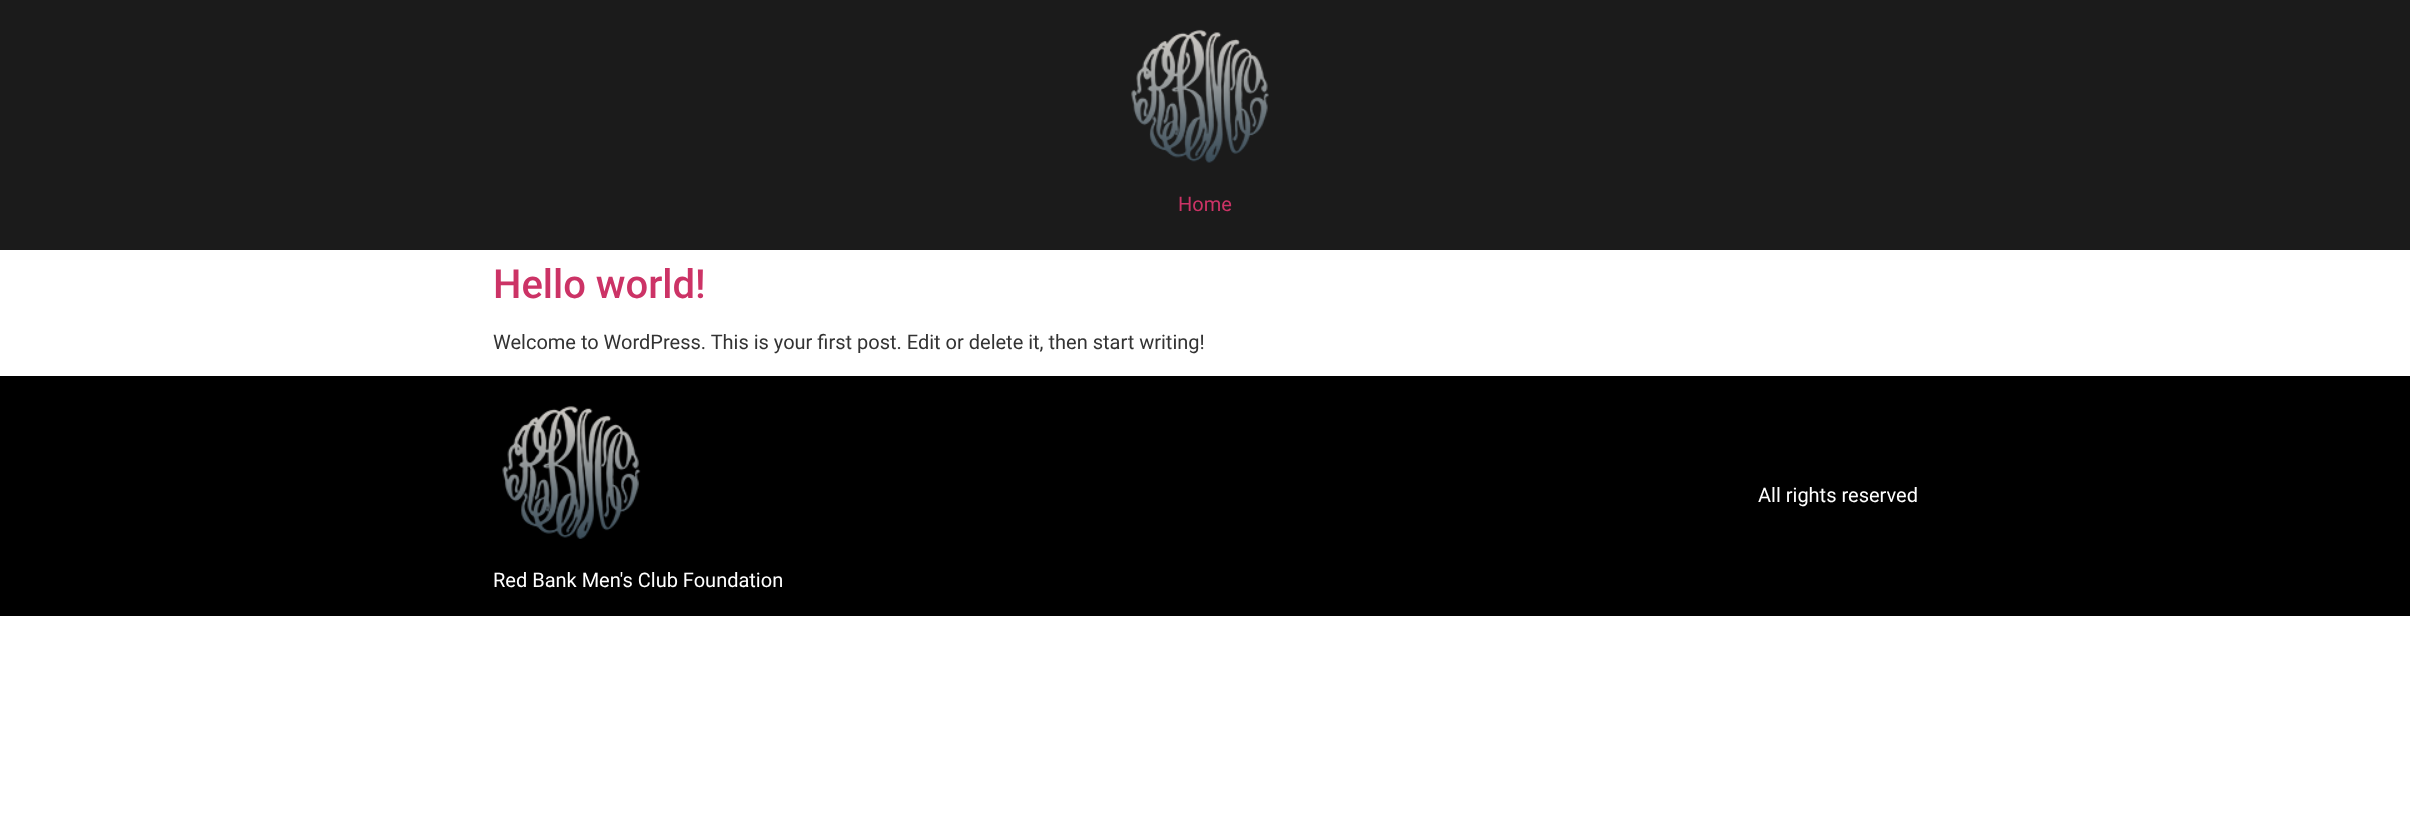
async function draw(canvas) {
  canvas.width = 2410
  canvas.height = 816
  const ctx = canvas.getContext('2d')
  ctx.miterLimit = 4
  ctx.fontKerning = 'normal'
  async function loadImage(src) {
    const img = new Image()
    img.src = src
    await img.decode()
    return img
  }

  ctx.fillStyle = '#fff'
  ctx.fillRect(0, 0, 2410, 816)
  ctx.fillStyle = '#1b1b1b'
  ctx.fillRect(0, 0, 2410, 250)
  ctx.drawImage(await loadImage('image0.png'), 1131, 29, 138, 134)
  ctx.font = '20px Roboto'
  ctx.fillStyle = '#c36'
  ctx.fillText('Home', 1178, 211)
  ctx.font = '500 40px Roboto'
  ctx.fillText('Hello world!', 493, 298)
  ctx.font = '20px Roboto'
  ctx.fillStyle = '#333'
  ctx.fillText('Welcome to WordPress. This is your first post. Edit or delete it, then start writing!', 493, 349)
  ctx.fillStyle = '#000'
  ctx.fillRect(0, 376, 2410, 240)
  ctx.fillStyle = '#fff'
  ctx.fillText('All rights reserved', 1758, 502)
  ctx.drawImage(await loadImage('image1.png'), 502, 406, 139, 133)
  ctx.fillText('Red Bank Men\'s Club Foundation', 493, 587)
}

draw(document.querySelector('canvas'))
